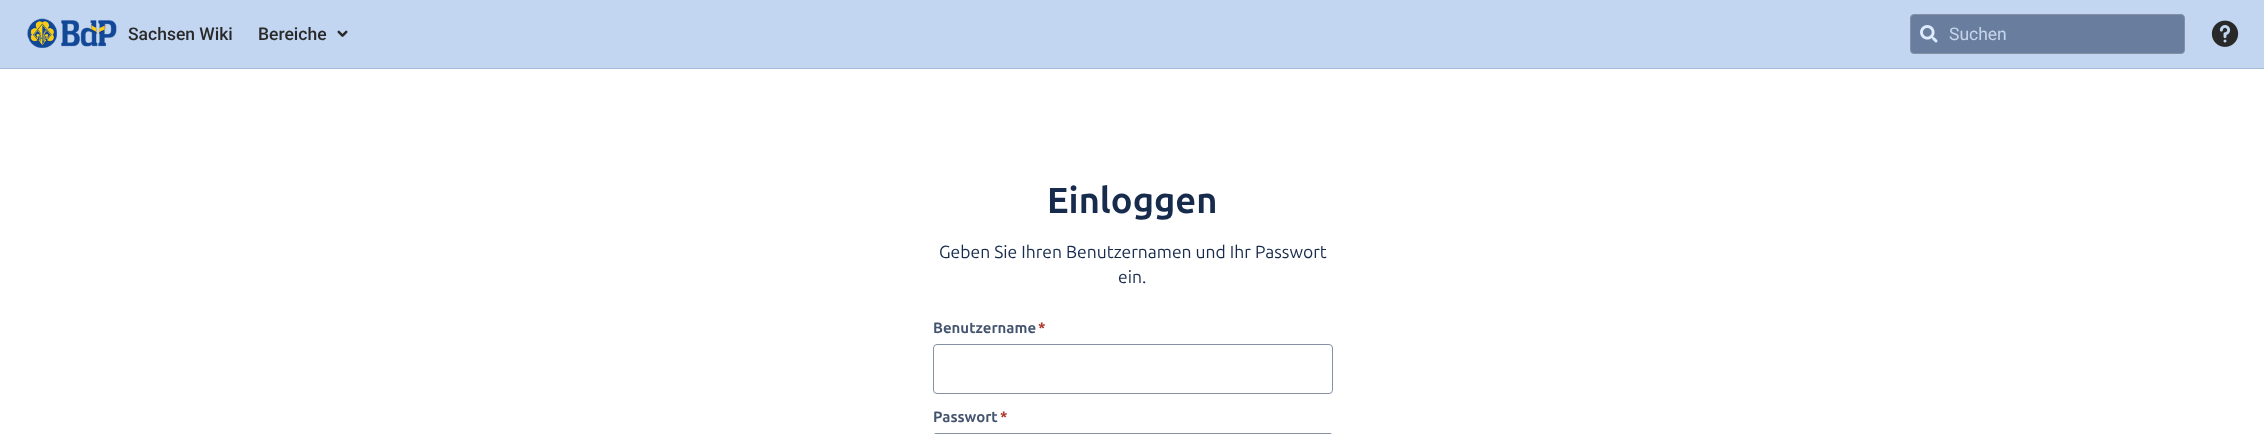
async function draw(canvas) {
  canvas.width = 2264
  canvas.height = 434
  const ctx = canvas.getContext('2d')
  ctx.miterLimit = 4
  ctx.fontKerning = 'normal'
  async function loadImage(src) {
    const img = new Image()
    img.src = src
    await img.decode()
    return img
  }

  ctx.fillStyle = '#fff'
  ctx.fillRect(0, 0, 2264, 434)
  ctx.fillStyle = '#c2d6f2'
  ctx.fillRect(0, 0, 2264, 68)
  ctx.fillStyle = '#a8bcd9'
  ctx.fillRect(0, 68, 2264, 1)
  ctx.drawImage(await loadImage('image0.png'), 27, 18, 90, 30)
  ctx.font = '500 17.5px Roboto'
  ctx.fillStyle = '#292929'
  ctx.fillText('Sachsen Wiki', 128, 40)
  ctx.fillText('Bereiche', 258, 40)
  ctx.drawImage(await loadImage('image1.png'), 337, 30, 11, 7)
  ctx.fillStyle = '#697e9e'
  ctx.beginPath()
  ctx.roundRect(1910.5, 14.5, 274, 39, 3.5)
  ctx.fill()
  ctx.strokeStyle = '#8590a2'
  ctx.stroke()
  ctx.drawImage(await loadImage('image2.png'), 1920, 25, 18, 18)
  ctx.font = '17.5px Roboto'
  ctx.fillStyle = '#c7d5ec'
  ctx.fillText('Suchen', 1949, 40)
  ctx.drawImage(await loadImage('image3.png'), 2211, 20, 28, 27)
  ctx.font = 'bold 36.25px Ubuntu'
  ctx.fillStyle = '#172b4d'
  ctx.fillText('Einloggen', 1047, 213)
  ctx.font = '17.5px Ubuntu'
  ctx.fillText('Geben Sie Ihren Benutzernamen und Ihr Passwort', 939, 258)
  ctx.fillText('ein.', 1118, 283)
  ctx.font = 'bold 15px Ubuntu'
  ctx.fillStyle = '#44546f'
  ctx.fillText('Benutzername', 933, 333)
  ctx.fillStyle = '#ae2e24'
  ctx.fillText('*', 1038, 333)
  ctx.beginPath()
  ctx.roundRect(933.5, 344.5, 399, 49, 3.5)
  ctx.stroke()
  ctx.fillStyle = '#44546f'
  ctx.fillText('Passwort', 933, 422)
  ctx.fillStyle = '#ae2e24'
  ctx.fillText('*', 1000, 422)
  ctx.beginPath()
  ctx.roundRect(933.5, 433.5, 399, 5, 3.5)
  ctx.stroke()
}

draw(document.querySelector('canvas'))
